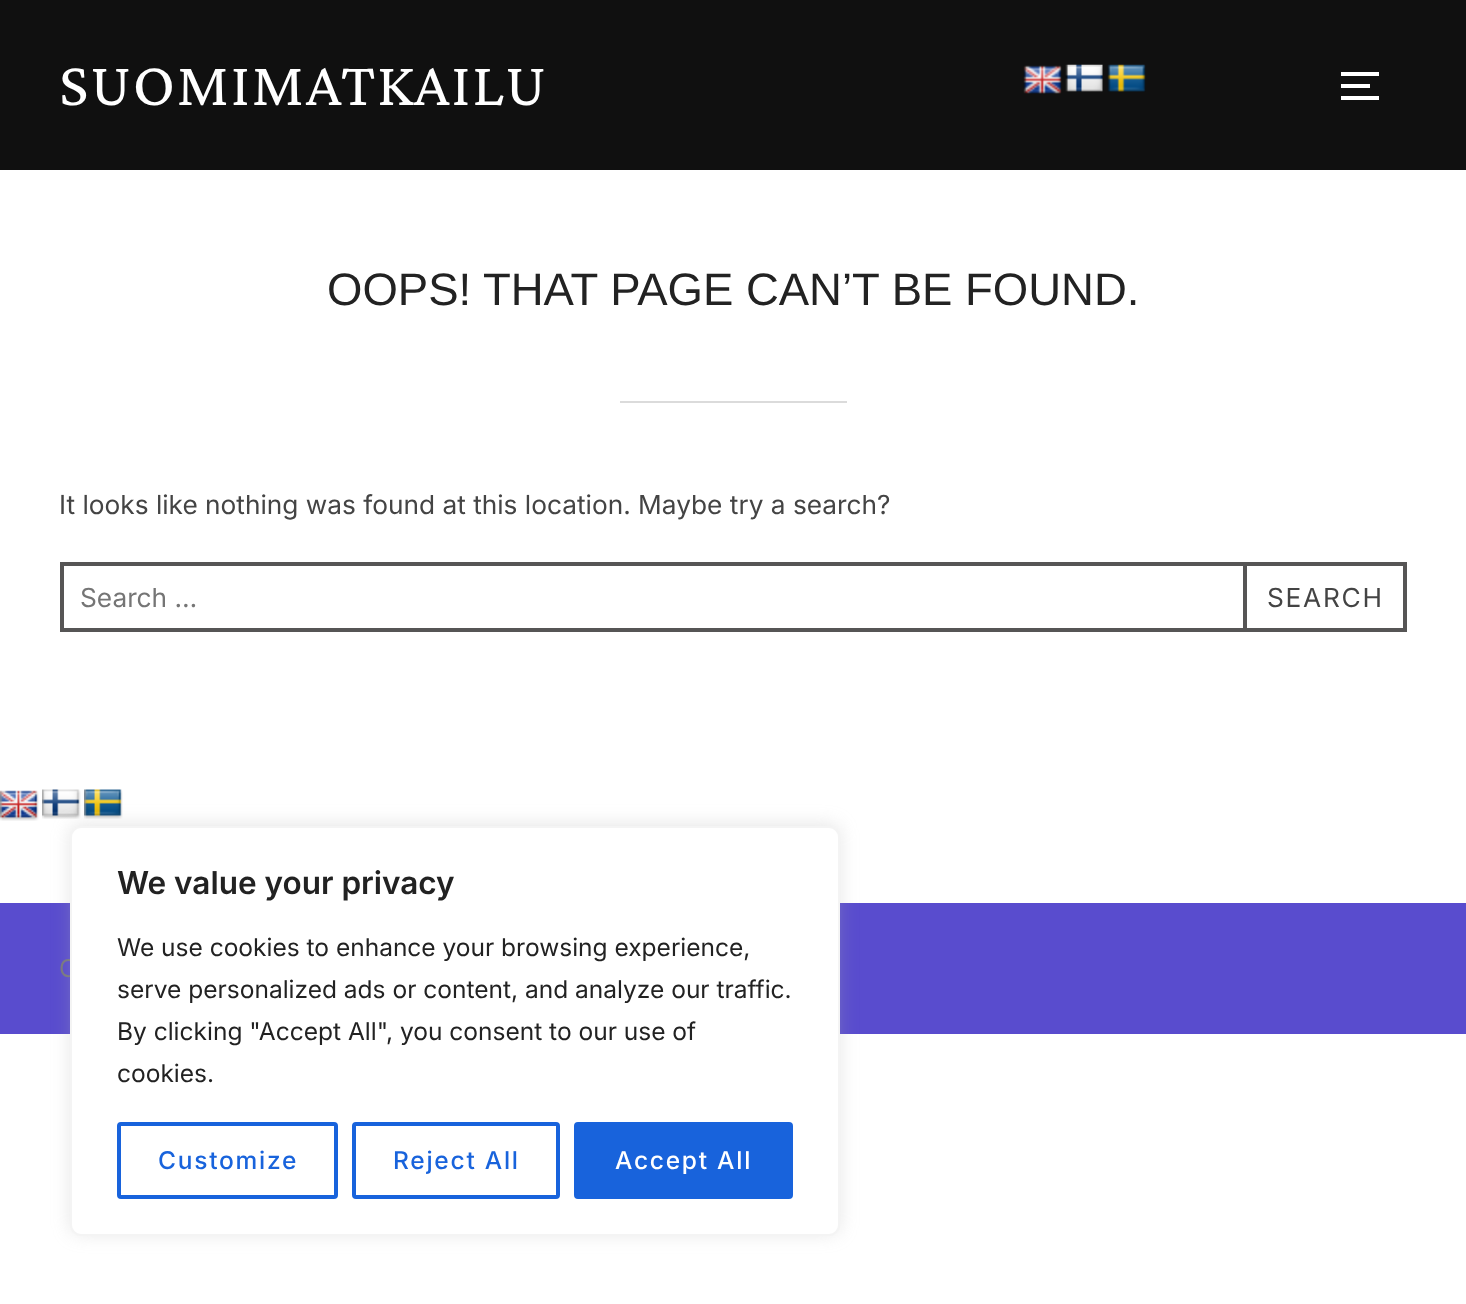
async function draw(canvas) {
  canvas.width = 1466
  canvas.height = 1304
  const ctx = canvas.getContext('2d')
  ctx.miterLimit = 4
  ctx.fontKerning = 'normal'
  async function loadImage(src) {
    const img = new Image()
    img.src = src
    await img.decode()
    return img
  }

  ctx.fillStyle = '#fff'
  ctx.fillRect(0, 0, 1466, 1304)
  ctx.fillStyle = '#101010'
  ctx.fillRect(0, 0, 1466, 170)
  ctx.letterSpacing = '1.75px'
  ctx.font = '63px Crimson Pro'
  ctx.fillStyle = '#fff'
  ctx.fillText('SUOMIMATKAILU', 59, 105)
  ctx.drawImage(await loadImage('image0.png'), 1023, 65, 39, 29)
  ctx.drawImage(await loadImage('image1.png'), 1065, 64, 38, 28)
  ctx.drawImage(await loadImage('image2.png'), 1107, 64, 39, 28)
  ctx.fillRect(1341, 72, 38, 4)
  ctx.fillRect(1341, 84, 29, 4)
  ctx.fillRect(1341, 96, 38, 4)
  ctx.letterSpacing = '0px'
  ctx.font = '45.5px Liberation Sans'
  ctx.fillStyle = '#222'
  ctx.fillText('OOPS! THAT PAGE CAN’T BE FOUND.', 327, 305)
  ctx.fillStyle = '#dbdbdb'
  ctx.fillRect(620, 401, 227, 2)
  ctx.font = '26.25px Inter'
  ctx.fillStyle = '#444'
  ctx.fillText('It looks like nothing was found at this location. Maybe try a search?', 59, 514)
  ctx.strokeStyle = '#565555'
  ctx.lineWidth = 4
  ctx.strokeRect(62, 564, 1343, 66)
  ctx.fillStyle = '#757575'
  ctx.fillText('Search …', 80, 607)
  ctx.strokeRect(1245, 564, 160, 66)
  ctx.letterSpacing = '1.75px'
  ctx.fillStyle = '#444'
  ctx.fillText('SEARCH', 1267, 607)
  ctx.drawImage(await loadImage('image3.png'), 0, 790, 39, 31)
  ctx.drawImage(await loadImage('image4.png'), 42, 789, 39, 30)
  ctx.drawImage(await loadImage('image5.png'), 84, 789, 39, 30)
  ctx.fillStyle = '#594cce'
  ctx.fillRect(0, 903, 1466, 131)
  ctx.letterSpacing = '0px'
  ctx.font = '24.5px Inter'
  ctx.fillStyle = '#78787f'
  ctx.fillText('C', 59, 977)
  ctx.fillStyle = '#acabab4d'
  ctx.filter = 'blur(9px)'
  ctx.beginPath()
  ctx.roundRect(70, 824, 770, 410, 11)
  ctx.fill()
  ctx.filter = 'none'
  ctx.fillStyle = '#fff'
  ctx.beginPath()
  ctx.roundRect(71, 827, 768, 408, 10)
  ctx.fill()
  ctx.strokeStyle = '#f4f4f4'
  ctx.lineWidth = 2
  ctx.stroke()
  ctx.font = '600 31.5px Inter'
  ctx.fillStyle = '#222'
  ctx.fillText('We value your privacy', 117, 894)
  ctx.font = '24.5px Inter'
  ctx.fillText('We use cookies to enhance your browsing experience,', 117, 956)
  ctx.fillText('serve personalized ads or content, and analyze our traffic.', 117, 998)
  ctx.fillText('By clicking "Accept All", you consent to our use of', 117, 1040)
  ctx.fillText('cookies.', 117, 1082)
  ctx.beginPath()
  ctx.roundRect(119, 1124, 217, 73, 2)
  ctx.strokeStyle = '#1863dc'
  ctx.lineWidth = 4
  ctx.stroke()
  ctx.letterSpacing = '1.75px'
  ctx.font = '500 24.5px Inter'
  ctx.fillStyle = '#1863dc'
  ctx.fillText('Customize', 158, 1169)
  ctx.beginPath()
  ctx.roundRect(354, 1124, 204, 73, 2)
  ctx.stroke()
  ctx.fillText('Reject All', 393, 1169)
  ctx.beginPath()
  ctx.roundRect(576, 1124, 215, 73, 2)
  ctx.fill()
  ctx.stroke()
  ctx.fillStyle = '#fff'
  ctx.fillText('Accept All', 615, 1169)
}

draw(document.querySelector('canvas'))
